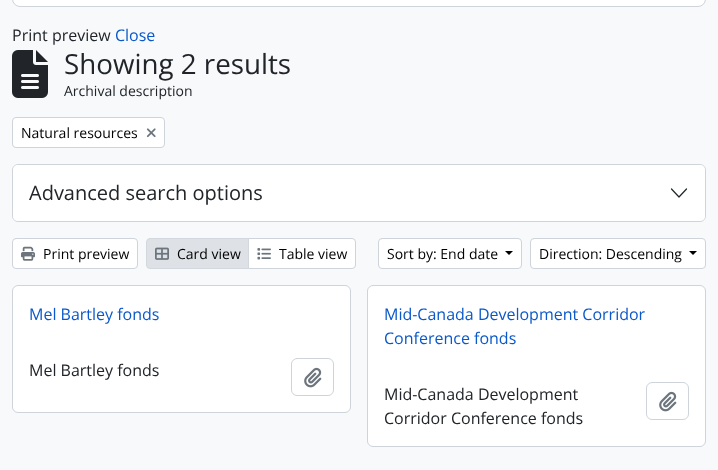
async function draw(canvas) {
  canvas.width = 718
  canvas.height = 470
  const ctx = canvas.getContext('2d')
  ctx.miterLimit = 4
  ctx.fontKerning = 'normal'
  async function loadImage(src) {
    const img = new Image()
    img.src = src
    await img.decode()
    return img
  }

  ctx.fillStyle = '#f8f9fa'
  ctx.fillRect(0, 0, 718, 470)
  ctx.fillStyle = '#fff'
  ctx.beginPath()
  ctx.roundRect(12.5, -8.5, 693, 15, 7.5)
  ctx.fill()
  ctx.strokeStyle = '#ced4da'
  ctx.stroke()
  ctx.font = '16px Open Sans'
  ctx.fillStyle = '#212529'
  ctx.fillText('Print preview', 12, 41)
  ctx.fillStyle = '#0a58ca'
  ctx.fillText('Close', 115, 41)
  ctx.drawImage(await loadImage('image0.png'), 12, 50, 36, 48)
  ctx.font = '27.75px Open Sans'
  ctx.fillStyle = '#212529'
  ctx.fillText('Showing 2 results', 64, 74)
  ctx.font = '14px Open Sans'
  ctx.fillText('Archival description', 64, 96)
  ctx.fillStyle = '#fff'
  ctx.beginPath()
  ctx.roundRect(12.5, 117.5, 152, 30, 3.5)
  ctx.fill()
  ctx.stroke()
  ctx.fillStyle = '#000'
  ctx.fillText('Natural resources', 21, 138)
  ctx.drawImage(await loadImage('image1.png'), 146, 128, 10, 10)
  ctx.beginPath()
  ctx.roundRect(12.5, 164.5, 693, 57, 5.5)
  ctx.stroke()
  ctx.fillStyle = '#fff'
  ctx.beginPath()
  ctx.roundRect(13, 165, 692, 56, 5)
  ctx.fill()
  ctx.font = '20px Open Sans'
  ctx.fillStyle = '#212529'
  ctx.fillText('Advanced search options', 29, 200)
  ctx.beginPath()
  ctx.moveTo(671.5, 189)
  ctx.lineTo(679, 197)
  ctx.lineTo(686.5, 189)
  ctx.strokeStyle = '#212529'
  ctx.lineWidth = 1.2
  ctx.lineCap = 'round'
  ctx.lineJoin = 'round'
  ctx.stroke()
  ctx.fillStyle = '#fff'
  ctx.beginPath()
  ctx.roundRect(12.5, 238.5, 125, 30, 3.5)
  ctx.fill()
  ctx.strokeStyle = '#ced4da'
  ctx.lineWidth = 1
  ctx.lineJoin = 'miter'
  ctx.stroke()
  ctx.drawImage(await loadImage('image2.png'), 21, 246, 14, 15)
  ctx.font = '14px Open Sans'
  ctx.fillStyle = '#000'
  ctx.fillText('Print preview', 43, 259)
  ctx.fillStyle = '#fff'
  ctx.beginPath()
  ctx.roundRect(248.5, 238.5, 107, 30, [0, 3.5, 3.5, 0])
  ctx.fill()
  ctx.stroke()
  ctx.fillStyle = '#dee2e6'
  ctx.beginPath()
  ctx.roundRect(146.5, 238.5, 102, 30, [3.5, 0, 0, 3.5])
  ctx.fill()
  ctx.strokeStyle = '#d3d8de'
  ctx.stroke()
  ctx.drawImage(await loadImage('image3.png'), 155, 247, 14, 13)
  ctx.fillStyle = '#000'
  ctx.fillText('Card view', 177, 259)
  ctx.drawImage(await loadImage('image4.png'), 257, 248, 14, 12)
  ctx.fillText('Table view', 279, 259)
  ctx.fillStyle = '#fff'
  ctx.beginPath()
  ctx.roundRect(378.5, 238.5, 143, 30, 3.5)
  ctx.fill()
  ctx.strokeStyle = '#ced4da'
  ctx.stroke()
  ctx.fillStyle = '#000'
  ctx.fillText('Sort by: End date', 387, 259)
  ctx.beginPath()
  ctx.moveTo(505, 251)
  ctx.lineTo(513, 251)
  ctx.lineTo(509, 255)
  ctx.closePath()
  ctx.fill()
  ctx.fillStyle = '#fff'
  ctx.beginPath()
  ctx.roundRect(530.5, 238.5, 175, 30, 3.5)
  ctx.fill()
  ctx.stroke()
  ctx.fillStyle = '#000'
  ctx.fillText('Direction: Descending', 539, 259)
  ctx.beginPath()
  ctx.moveTo(689, 251)
  ctx.lineTo(697, 251)
  ctx.lineTo(693, 255)
  ctx.closePath()
  ctx.fill()
  ctx.fillStyle = '#fff'
  ctx.beginPath()
  ctx.roundRect(12.5, 285.5, 338, 127, 5.5)
  ctx.fill()
  ctx.stroke()
  ctx.font = '16px Open Sans'
  ctx.fillStyle = '#0a58ca'
  ctx.fillText('Mel Bartley fonds', 29, 320)
  ctx.fillStyle = '#212529'
  ctx.fillText('Mel Bartley fonds', 29, 376)
  ctx.beginPath()
  ctx.roundRect(291.5, 358.5, 42, 37, 5.5)
  ctx.stroke()
  ctx.drawImage(await loadImage('image5.png'), 304, 367, 18, 21)
  ctx.fillStyle = '#fff'
  ctx.beginPath()
  ctx.roundRect(367.5, 285.5, 338, 161, 5.5)
  ctx.fill()
  ctx.stroke()
  ctx.fillStyle = '#0a58ca'
  ctx.fillText('Mid-Canada Development Corridor', 384, 320)
  ctx.fillText('Conference fonds', 384, 344)
  ctx.fillStyle = '#212529'
  ctx.fillText('Mid-Canada Development', 384, 400)
  ctx.fillText('Corridor Conference fonds', 384, 424)
  ctx.beginPath()
  ctx.roundRect(646.5, 382.5, 42, 37, 5.5)
  ctx.stroke()
  ctx.drawImage(await loadImage('image5.png'), 659, 391, 18, 21)
}

draw(document.querySelector('canvas'))
